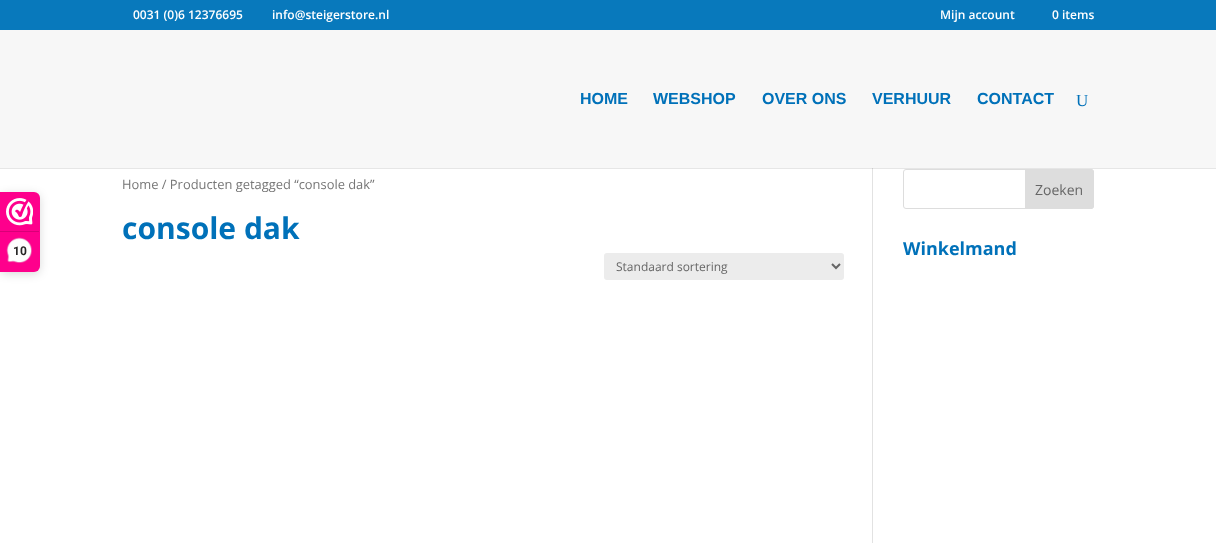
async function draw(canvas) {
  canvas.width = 1216
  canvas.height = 543
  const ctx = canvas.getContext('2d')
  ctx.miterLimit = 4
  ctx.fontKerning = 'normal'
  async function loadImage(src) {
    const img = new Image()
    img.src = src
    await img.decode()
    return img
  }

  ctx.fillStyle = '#fff'
  ctx.fillRect(0, 0, 1216, 543)
  ctx.fillStyle = '#e6e6e6'
  ctx.fillRect(0, 168, 1216, 1)
  ctx.fillStyle = '#00000026'
  ctx.filter = 'blur(5px)'
  ctx.beginPath()
  ctx.roundRect(0, 194, 40, 80, 6)
  ctx.fill()
  ctx.filter = 'none'
  ctx.fillStyle = '#fe008c'
  ctx.beginPath()
  ctx.roundRect(0, 192, 40, 80, [0, 6, 6, 0])
  ctx.fill()
  ctx.drawImage(await loadImage('image0.png'), 6, 198, 27, 28)
  ctx.fillStyle = '#d80077'
  ctx.fillRect(0, 231, 39, 1)
  ctx.drawImage(await loadImage('image1.png'), 6, 237, 26, 26)
  ctx.font = 'bold 12px Roboto'
  ctx.fillStyle = '#272626'
  ctx.fillText('10', 13, 255)
  ctx.fillStyle = '#0879bc'
  ctx.fillRect(0, 0, 1216, 30)
  ctx.font = '600 12px Open Sans'
  ctx.fillStyle = '#fff'
  ctx.fillText('0031 (0)6 12376695', 133, 19)
  ctx.fillText('info@steigerstore.nl', 272, 19)
  ctx.fillText('Mijn account', 940, 19)
  ctx.fillText('0 items', 1052, 19)
  ctx.fillStyle = '#f7f7f7'
  ctx.fillRect(0, 30, 1216, 138)
  ctx.font = 'bold 16px Liberation Sans'
  ctx.fillStyle = '#0071b9'
  ctx.fillText('HOME', 580, 104)
  ctx.fillText('WEBSHOP', 653, 104)
  ctx.fillText('OVER ONS', 762, 104)
  ctx.fillText('VERHUUR', 872, 104)
  ctx.fillText('CONTACT', 977, 104)
  ctx.font = '17px Liberation Serif'
  ctx.fillText('U', 1076, 106)
  ctx.fillStyle = '#e2e2e2'
  ctx.fillRect(872, 169, 1, 374)
  ctx.fillStyle = '#cbcbcb'
  ctx.fillRect(872, 168, 1, 1)
  ctx.font = '12.9px Open Sans'
  ctx.fillStyle = '#767676'
  ctx.fillText('Home / Producten getagged “console dak”', 122, 189)
  ctx.font = 'bold 30px Open Sans'
  ctx.fillStyle = '#0071b9'
  ctx.fillText('console dak', 122, 239)
  ctx.fillStyle = '#ececec'
  ctx.beginPath()
  ctx.roundRect(604, 253, 240, 27, 3)
  ctx.fill()
  ctx.beginPath()
  ctx.moveTo(832, 264)
  ctx.lineTo(836, 268)
  ctx.lineTo(840, 264)
  ctx.strokeStyle = '#666'
  ctx.lineWidth = 2
  ctx.stroke()
  ctx.font = '12px Open Sans'
  ctx.fillStyle = '#666'
  ctx.fillText('Standaard sortering', 616, 271)
  ctx.beginPath()
  ctx.roundRect(903.5, 169.5, 190, 39, 2.5)
  ctx.strokeStyle = '#ddd'
  ctx.lineWidth = 1
  ctx.stroke()
  ctx.fillStyle = '#ddd'
  ctx.beginPath()
  ctx.roundRect(1025.5, 169.5, 68, 39, [0, 2.5, 2.5, 0])
  ctx.fill()
  ctx.stroke()
  ctx.font = '14px Open Sans'
  ctx.fillStyle = '#666'
  ctx.fillText('Zoeken', 1035, 195)
  ctx.font = 'bold 18px Open Sans'
  ctx.fillStyle = '#0071b9'
  ctx.fillText('Winkelmand', 903, 255)
}

draw(document.querySelector('canvas'))
